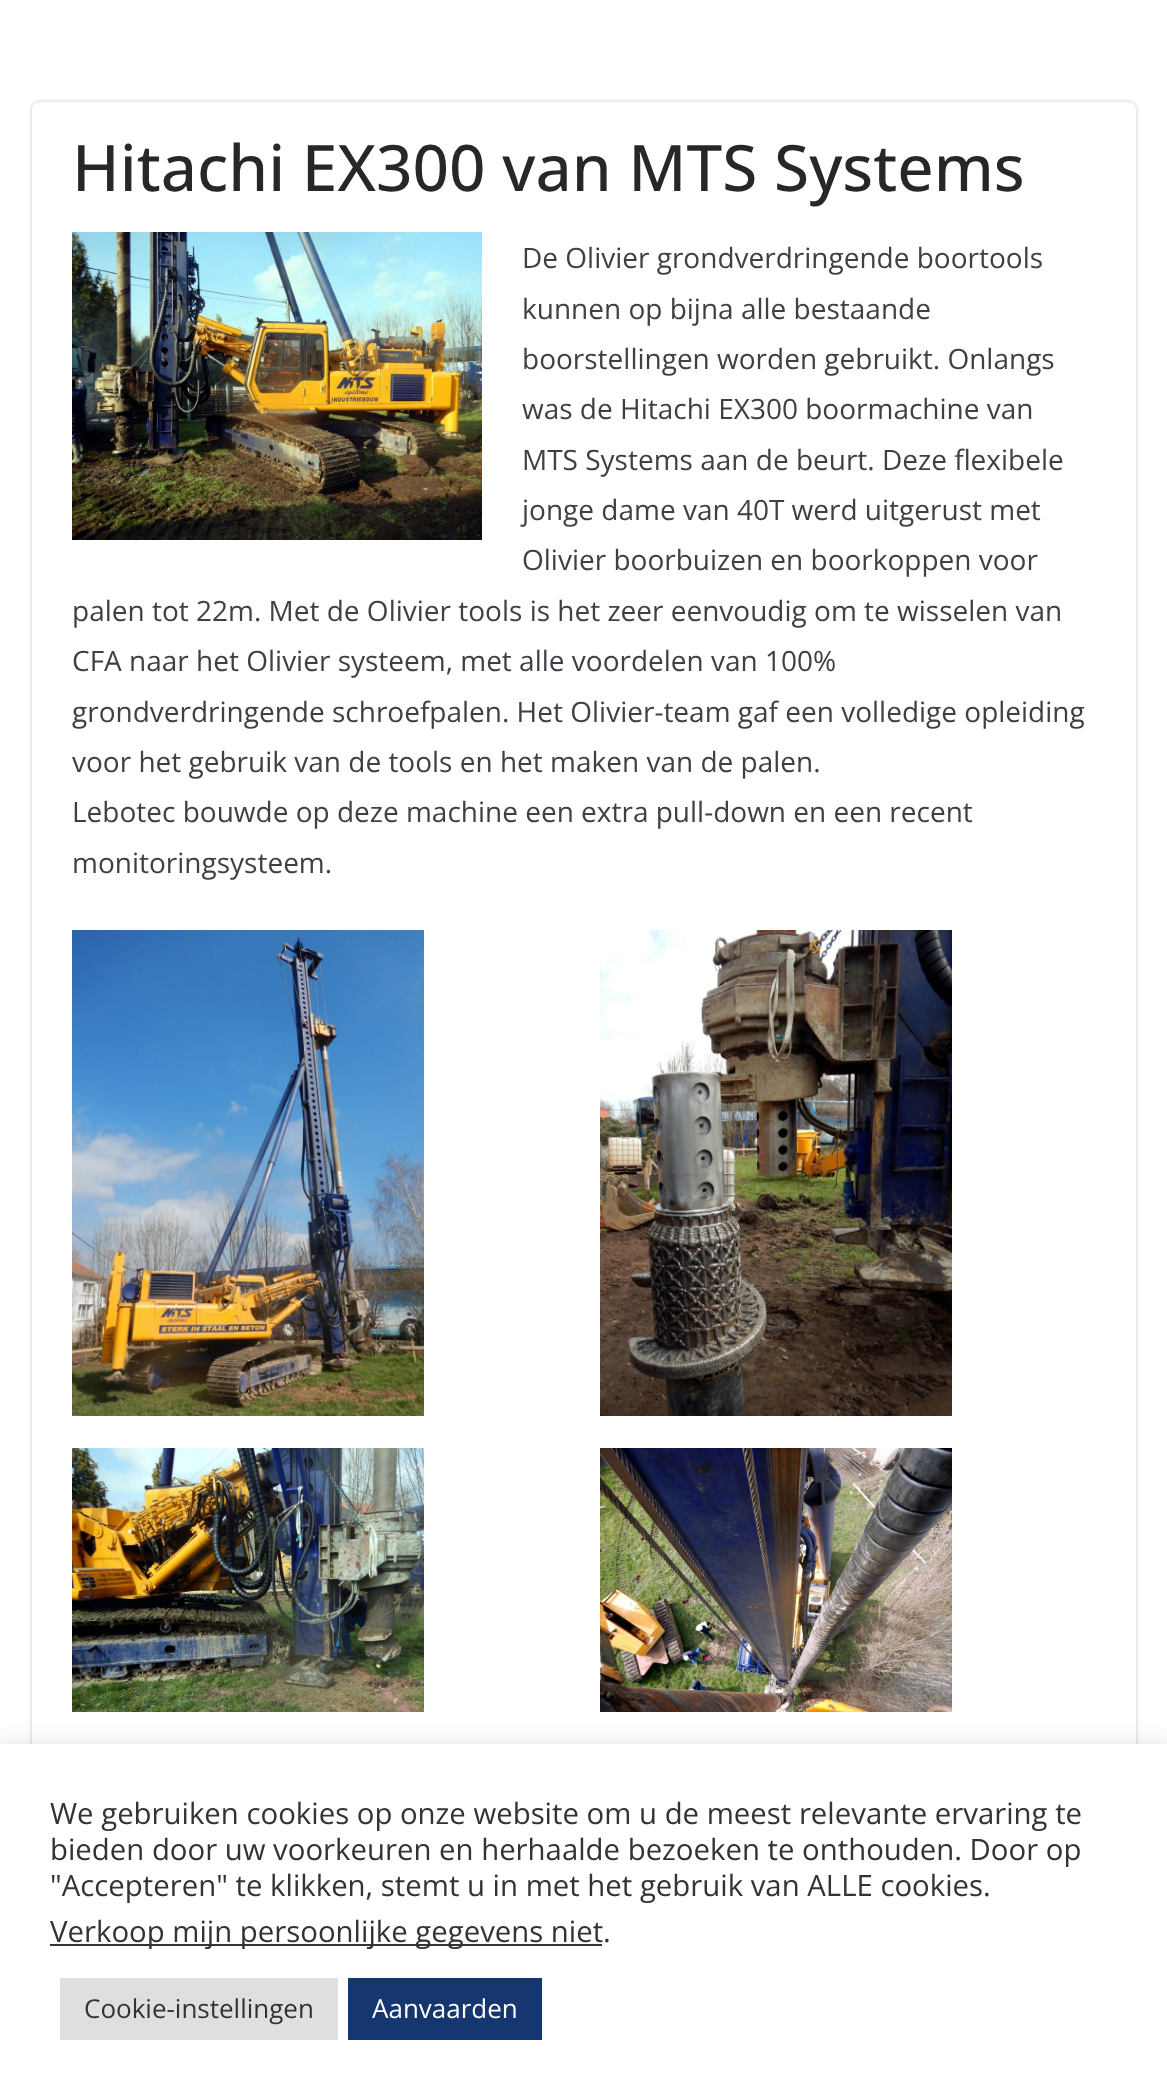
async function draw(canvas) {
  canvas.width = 1167
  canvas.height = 2100
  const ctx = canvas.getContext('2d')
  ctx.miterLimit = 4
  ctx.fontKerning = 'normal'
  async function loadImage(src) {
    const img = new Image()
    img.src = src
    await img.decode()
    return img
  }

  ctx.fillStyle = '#fff'
  ctx.fillRect(0, 0, 1167, 2100)
  ctx.save()
  ctx.beginPath()
  ctx.moveTo(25, 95)
  ctx.lineTo(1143, 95)
  ctx.lineTo(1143, 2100)
  ctx.lineTo(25, 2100)
  ctx.closePath()
  ctx.moveTo(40, 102)
  ctx.lineTo(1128, 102)
  ctx.bezierCurveTo(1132.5, 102, 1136, 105.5, 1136, 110)
  ctx.lineTo(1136, 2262)
  ctx.bezierCurveTo(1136, 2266.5, 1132.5, 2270, 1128, 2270)
  ctx.lineTo(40, 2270)
  ctx.bezierCurveTo(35.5, 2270, 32, 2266.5, 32, 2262)
  ctx.lineTo(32, 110)
  ctx.bezierCurveTo(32, 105.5, 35.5, 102, 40, 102)
  ctx.closePath()
  ctx.clip('evenodd')
  ctx.fillStyle = '#0000003d'
  ctx.filter = 'blur(2px)'
  ctx.beginPath()
  ctx.roundRect(32, 102, 1104, 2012, 8)
  ctx.fill()
  ctx.filter = 'none'
  ctx.restore()
  ctx.font = '500 64px Open Sans'
  ctx.fillStyle = '#27272a'
  ctx.fillText('Hitachi EX300 van MTS Systems', 72, 191)
  ctx.drawImage(await loadImage('image0.png'), 72, 232, 410, 308)
  ctx.font = '28px Open Sans'
  ctx.fillStyle = '#3f3f46'
  ctx.fillText('De Olivier grondverdringende boortools', 522, 268)
  ctx.fillText('kunnen op bijna alle bestaande', 522, 319)
  ctx.fillText('boorstellingen worden gebruikt. Onlangs', 522, 369)
  ctx.fillText('was de Hitachi EX300 boormachine van', 522, 419)
  ctx.fillText('MTS Systems aan de beurt. Deze flexibele', 522, 470)
  ctx.fillText('jonge dame van 40T werd uitgerust met', 522, 520)
  ctx.fillText('Olivier boorbuizen en boorkoppen voor', 522, 570)
  ctx.fillText('palen tot 22m. Met de Olivier tools is het zeer eenvoudig om te wisselen van', 72, 621)
  ctx.fillText('CFA naar het Olivier systeem, met alle voordelen van 100%', 72, 671)
  ctx.fillText('grondverdringende schroefpalen. Het Olivier-team gaf een volledige opleiding', 72, 722)
  ctx.fillText('voor het gebruik van de tools en het maken van de palen.', 72, 772)
  ctx.fillText('Lebotec bouwde op deze machine een extra pull-down en een recent', 72, 822)
  ctx.fillText('monitoringsysteem.', 72, 873)
  ctx.drawImage(await loadImage('image1.png'), 72, 930, 352, 486)
  ctx.drawImage(await loadImage('image2.png'), 600, 930, 352, 486)
  ctx.drawImage(await loadImage('image3.png'), 72, 1448, 352, 264)
  ctx.drawImage(await loadImage('image4.png'), 600, 1448, 352, 264)
  ctx.fillStyle = '#acabab4d'
  ctx.filter = 'blur(10px)'
  ctx.beginPath()
  ctx.rect(0, 1742, 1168, 356)
  ctx.fill()
  ctx.filter = 'none'
  ctx.fillStyle = '#fff'
  ctx.fillRect(0, 1744, 1167, 356)
  ctx.font = '29.35px Open Sans'
  ctx.fillStyle = '#333'
  ctx.fillText('We gebruiken cookies op onze website om u de meest relevante ervaring te', 50, 1824)
  ctx.fillText('bieden door uw voorkeuren en herhaalde bezoeken te onthouden. Door op', 50, 1860)
  ctx.fillText('"Accepteren" te klikken, stemt u in met het gebruik van ALLE cookies.', 50, 1896)
  ctx.fillRect(50, 1944, 552, 2)
  ctx.fillText('Verkoop mijn persoonlijke gegevens niet', 50, 1942)
  ctx.fillText('.', 603, 1942)
  ctx.fillStyle = '#dedfe0'
  ctx.fillRect(60, 1978, 278, 62)
  ctx.font = '26px Open Sans'
  ctx.fillStyle = '#333'
  ctx.fillText('Cookie-instellingen', 84, 2018)
  ctx.fillStyle = '#15366f'
  ctx.fillRect(348, 1978, 194, 62)
  ctx.fillStyle = '#fff'
  ctx.fillText('Aanvaarden', 372, 2018)
}

draw(document.querySelector('canvas'))
